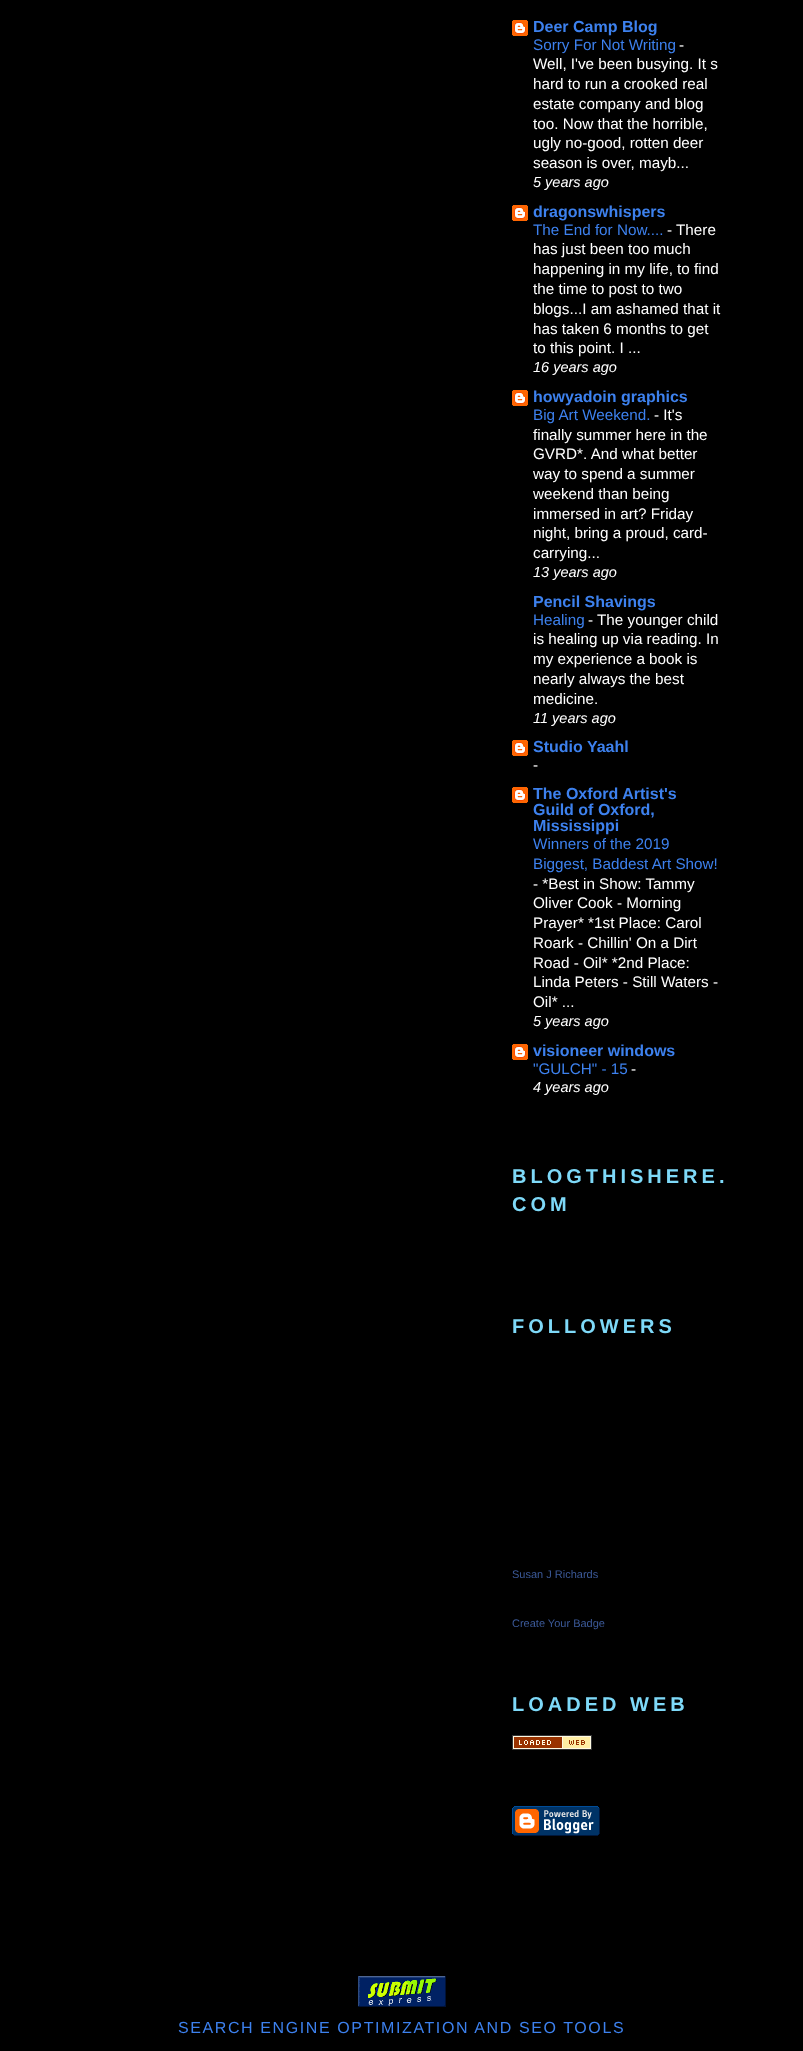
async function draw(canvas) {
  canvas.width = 803
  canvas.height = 2051
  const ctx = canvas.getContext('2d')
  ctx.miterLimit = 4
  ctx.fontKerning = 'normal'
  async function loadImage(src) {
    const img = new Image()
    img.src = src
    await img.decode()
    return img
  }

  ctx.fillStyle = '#000'
  ctx.fillRect(0, 0, 803, 2051)
  ctx.drawImage(await loadImage('image0.png'), 512, 20, 16, 16)
  ctx.font = 'bold 16px Liberation Sans'
  ctx.fillStyle = '#3d81ee'
  ctx.fillText('Deer Camp Blog', 533, 32)
  ctx.font = '15.25px Liberation Sans'
  ctx.fillText('Sorry For Not Writing', 533, 50)
  ctx.fillStyle = '#fff'
  ctx.fillText('-', 679, 50)
  ctx.fillText('Well, I\'ve been busying. It s', 533, 69)
  ctx.fillText('hard to run a crooked real', 533, 89)
  ctx.fillText('estate company and blog', 533, 109)
  ctx.fillText('too. Now that the horrible,', 533, 129)
  ctx.fillText('ugly no-good, rotten deer', 533, 148)
  ctx.fillText('season is over, mayb...', 533, 168)
  ctx.font = 'italic 14.5px Liberation Sans'
  ctx.fillText('5 years ago', 533, 187)
  ctx.drawImage(await loadImage('image0.png'), 512, 205, 16, 16)
  ctx.font = 'bold 16px Liberation Sans'
  ctx.fillStyle = '#3d81ee'
  ctx.fillText('dragonswhispers', 533, 217)
  ctx.font = '15.25px Liberation Sans'
  ctx.fillText('The End for Now....', 533, 235)
  ctx.fillStyle = '#fff'
  ctx.fillText('- There', 667, 235)
  ctx.fillText('has just been too much', 533, 254)
  ctx.fillText('happening in my life, to find', 533, 274)
  ctx.fillText('the time to post to two', 533, 294)
  ctx.fillText('blogs...I am ashamed that it', 533, 314)
  ctx.fillText('has taken 6 months to get', 533, 334)
  ctx.fillText('to this point. I ...', 533, 353)
  ctx.font = 'italic 14.5px Liberation Sans'
  ctx.fillText('16 years ago', 533, 372)
  ctx.drawImage(await loadImage('image0.png'), 512, 390, 16, 16)
  ctx.font = 'bold 16px Liberation Sans'
  ctx.fillStyle = '#3d81ee'
  ctx.fillText('howyadoin graphics', 533, 402)
  ctx.font = '15.25px Liberation Sans'
  ctx.fillText('Big Art Weekend.', 533, 420)
  ctx.fillStyle = '#fff'
  ctx.fillText('- It\'s', 654, 420)
  ctx.fillText('finally summer here in the', 533, 440)
  ctx.fillText('GVRD*. And what better', 533, 459)
  ctx.fillText('way to spend a summer', 533, 479)
  ctx.fillText('weekend than being', 533, 499)
  ctx.fillText('immersed in art? Friday', 533, 519)
  ctx.fillText('night, bring a proud, card-', 533, 538)
  ctx.fillText('carrying...', 533, 558)
  ctx.font = 'italic 14.5px Liberation Sans'
  ctx.fillText('13 years ago', 533, 577)
  ctx.font = 'bold 16px Liberation Sans'
  ctx.fillStyle = '#3d81ee'
  ctx.fillText('Pencil Shavings', 533, 607)
  ctx.font = '15.25px Liberation Sans'
  ctx.fillText('Healing', 533, 625)
  ctx.fillStyle = '#fff'
  ctx.fillText('- The younger child', 588, 625)
  ctx.fillText('is healing up via reading. In', 533, 644)
  ctx.fillText('my experience a book is', 533, 664)
  ctx.fillText('nearly always the best', 533, 684)
  ctx.fillText('medicine.', 533, 704)
  ctx.font = 'italic 14.5px Liberation Sans'
  ctx.fillText('11 years ago', 533, 723)
  ctx.drawImage(await loadImage('image0.png'), 512, 740, 16, 16)
  ctx.font = 'bold 16px Liberation Sans'
  ctx.fillStyle = '#3d81ee'
  ctx.fillText('Studio Yaahl', 533, 752)
  ctx.font = '15.25px Liberation Sans'
  ctx.fillStyle = '#fff'
  ctx.fillText('-', 533, 770)
  ctx.drawImage(await loadImage('image0.png'), 512, 787, 16, 16)
  ctx.font = 'bold 16px Liberation Sans'
  ctx.fillStyle = '#3d81ee'
  ctx.fillText('The Oxford Artist\'s', 533, 799)
  ctx.fillText('Guild of Oxford,', 533, 815)
  ctx.fillText('Mississippi', 533, 831)
  ctx.font = '15.25px Liberation Sans'
  ctx.fillText('Winners of the 2019', 533, 849)
  ctx.fillText('Biggest, Baddest Art Show!', 533, 869)
  ctx.fillStyle = '#fff'
  ctx.fillText('- *Best in Show: Tammy', 533, 889)
  ctx.fillText('Oliver Cook - Morning', 533, 908)
  ctx.fillText('Prayer* *1st Place: Carol', 533, 928)
  ctx.fillText('Roark - Chillin\' On a Dirt', 533, 948)
  ctx.fillText('Road - Oil* *2nd Place:', 533, 968)
  ctx.fillText('Linda Peters - Still Waters -', 533, 987)
  ctx.fillText('Oil* ...', 533, 1007)
  ctx.font = 'italic 14.5px Liberation Sans'
  ctx.fillText('5 years ago', 533, 1026)
  ctx.drawImage(await loadImage('image0.png'), 512, 1044, 16, 16)
  ctx.font = 'bold 16px Liberation Sans'
  ctx.fillStyle = '#3d81ee'
  ctx.fillText('visioneer windows', 533, 1056)
  ctx.font = '15.25px Liberation Sans'
  ctx.fillText('"GULCH" - 15', 533, 1074)
  ctx.fillStyle = '#fff'
  ctx.fillText('-', 631, 1074)
  ctx.font = 'italic 14.5px Liberation Sans'
  ctx.fillText('4 years ago', 533, 1092)
  ctx.letterSpacing = '4px'
  ctx.font = 'bold 20px Liberation Sans'
  ctx.fillStyle = '#7ed9f8'
  ctx.fillText('BLOGTHISHERE.', 512, 1183)
  ctx.fillText('COM', 512, 1211)
  ctx.fillText('FOLLOWERS', 512, 1333)
  ctx.letterSpacing = '0px'
  ctx.font = '11px Liberation Sans'
  ctx.fillStyle = '#3b5998'
  ctx.fillText('Susan J Richards', 512, 1578)
  ctx.fillText('Create Your Badge', 512, 1627)
  ctx.letterSpacing = '4px'
  ctx.font = 'bold 20px Liberation Sans'
  ctx.fillStyle = '#7ed9f8'
  ctx.fillText('LOADED WEB', 512, 1711)
  ctx.drawImage(await loadImage('image1.png'), 512, 1735, 80, 15)
  ctx.drawImage(await loadImage('image2.png'), 512, 1806, 88, 30)
  ctx.drawImage(await loadImage('image3.png'), 358, 1976, 88, 31)
  ctx.letterSpacing = '1.6px'
  ctx.font = '16px Liberation Sans'
  ctx.fillStyle = '#3d81ee'
  ctx.fillText('SEARCH ENGINE OPTIMIZATION AND SEO TOOLS', 178, 2033)
}

draw(document.querySelector('canvas'))
